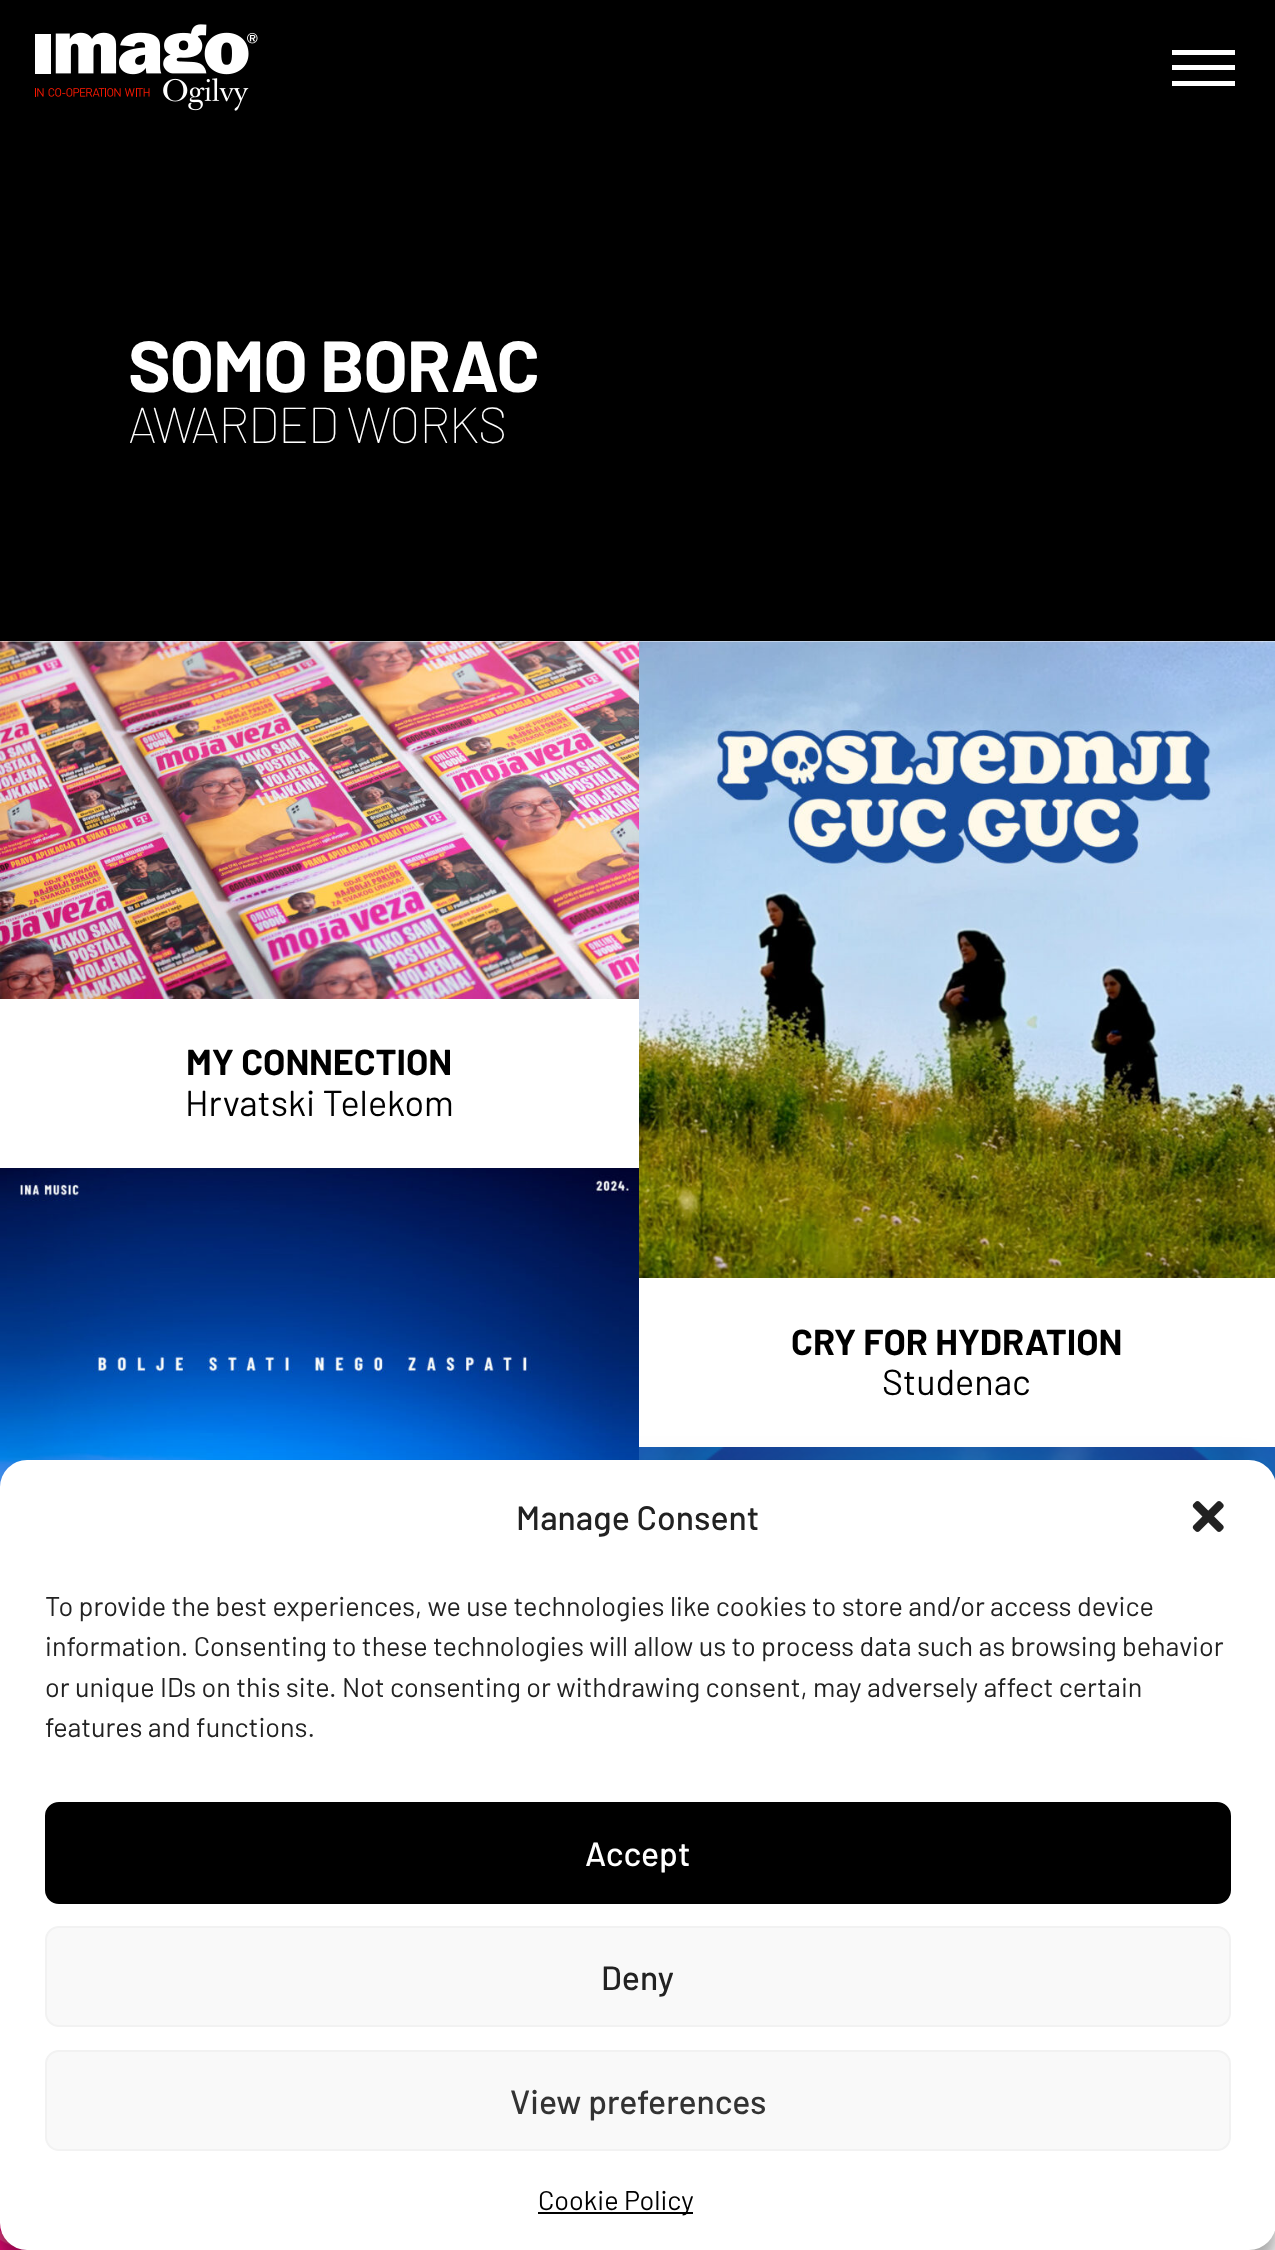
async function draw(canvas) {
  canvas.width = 1275
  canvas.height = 2250
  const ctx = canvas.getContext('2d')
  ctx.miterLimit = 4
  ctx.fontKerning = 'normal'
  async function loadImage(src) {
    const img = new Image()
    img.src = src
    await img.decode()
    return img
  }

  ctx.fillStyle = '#000'
  ctx.fillRect(0, 0, 1275, 2250)
  ctx.drawImage(await loadImage('image0.png'), 35, 24, 223, 87)
  ctx.fillStyle = '#fff'
  ctx.fillRect(1172, 50, 63, 5)
  ctx.fillRect(1172, 65, 63, 5)
  ctx.fillRect(1172, 81, 63, 5)
  ctx.fillRect(0, 641, 1275, 1609)
  ctx.letterSpacing = '-1.25px'
  ctx.font = 'bold 72px Barlow'
  ctx.fillText('SOMO BORAC', 128, 392)
  ctx.font = '100 50.5px Barlow'
  ctx.fillText('AWARDED WORKS', 128, 443)
  ctx.drawImage(await loadImage('image1.png'), 0, 641, 639, 358)
  ctx.letterSpacing = '0px'
  ctx.font = 'bold 36px Barlow'
  ctx.fillStyle = '#000'
  ctx.fillText('MY CONNECTION', 186, 1075)
  ctx.font = '36px Barlow'
  ctx.fillText('Hrvatski Telekom', 185, 1116)
  ctx.drawImage(await loadImage('image2.png'), 0, 1168, 639, 319)
  ctx.drawImage(await loadImage('image3.png'), 639, 641, 636, 637)
  ctx.font = 'bold 36px Barlow'
  ctx.fillText('CRY FOR HYDRATION', 791, 1355)
  ctx.font = '36px Barlow'
  ctx.fillText('Studenac', 882, 1395)
  ctx.drawImage(await loadImage('image4.png'), 639, 1447, 636, 33)
  ctx.drawImage(await loadImage('image5.png'), 0, 2223, 27, 27)
  ctx.fillStyle = '#0000003b'
  ctx.filter = 'blur(7px)'
  ctx.beginPath()
  ctx.roundRect(0, 1474, 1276, 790, 27)
  ctx.fill()
  ctx.filter = 'none'
  ctx.fillStyle = '#00000030'
  ctx.filter = 'blur(22.5px)'
  ctx.beginPath()
  ctx.roundRect(0, 1483, 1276, 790, 27)
  ctx.fill()
  ctx.filter = 'none'
  ctx.fillStyle = '#fff'
  ctx.beginPath()
  ctx.roundRect(0, 1460, 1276, 790, 27)
  ctx.fill()
  ctx.font = '500 33.75px Barlow'
  ctx.fillStyle = '#222'
  ctx.fillText('Manage Consent', 516, 1530)
  ctx.drawImage(await loadImage('image6.png'), 1192, 1501, 32, 31)
  ctx.font = '27px Barlow'
  ctx.fillText('To provide the best experiences, we use technologies like cookies to store and/or access device', 45, 1616)
  ctx.fillText('information. Consenting to these technologies will allow us to process data such as browsing behavior', 45, 1656)
  ctx.fillText('or unique IDs on this site. Not consenting or withdrawing consent, may adversely affect certain', 45, 1697)
  ctx.fillText('features and functions.', 45, 1737)
  ctx.fillStyle = '#000'
  ctx.beginPath()
  ctx.roundRect(46, 1803, 1184, 100, 13)
  ctx.fill()
  ctx.strokeStyle = '#000'
  ctx.lineWidth = 2
  ctx.stroke()
  ctx.font = '500 33.75px Barlow'
  ctx.fillStyle = '#fff'
  ctx.fillText('Accept', 585, 1866)
  ctx.fillStyle = '#f9f9f9'
  ctx.beginPath()
  ctx.roundRect(46, 1927, 1184, 99, 13)
  ctx.fill()
  ctx.strokeStyle = '#f2f2f2'
  ctx.stroke()
  ctx.fillStyle = '#222'
  ctx.fillText('Deny', 601, 1990)
  ctx.fillStyle = '#f9f9f9'
  ctx.beginPath()
  ctx.roundRect(46, 2051, 1184, 99, 13)
  ctx.fill()
  ctx.stroke()
  ctx.fillStyle = '#333'
  ctx.fillText('View preferences', 510, 2114)
  ctx.fillStyle = '#000'
  ctx.fillRect(538, 2212, 155, 2)
  ctx.font = '27px Barlow'
  ctx.fillText('Cookie Policy', 538, 2210)
}

draw(document.querySelector('canvas'))
